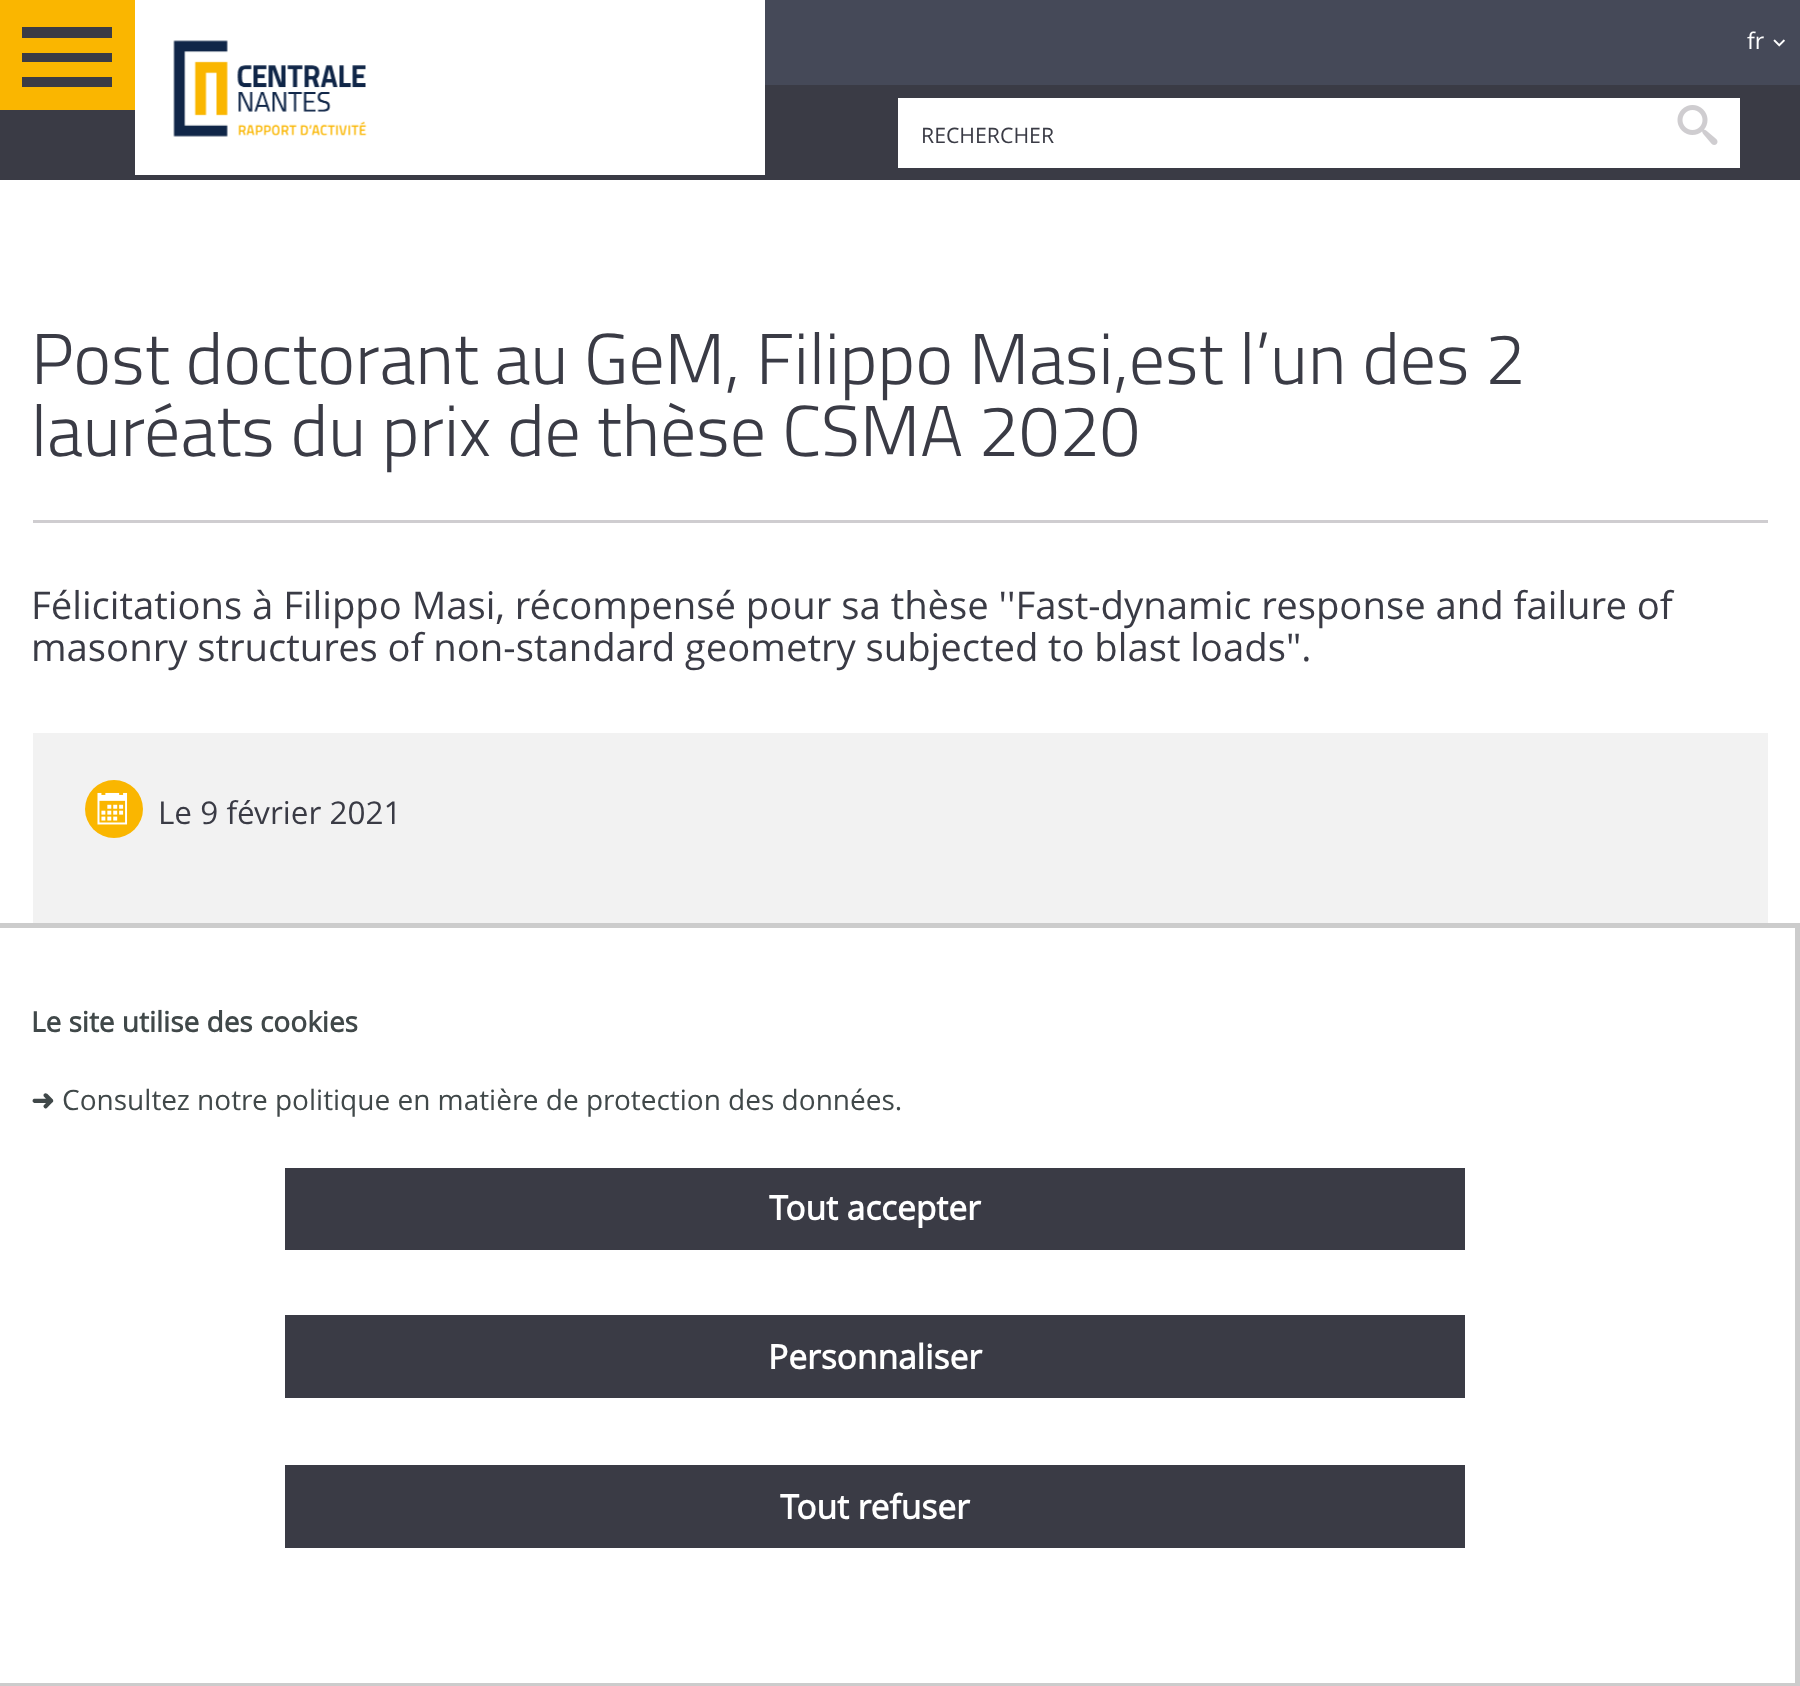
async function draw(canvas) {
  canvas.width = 1800
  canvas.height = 1686
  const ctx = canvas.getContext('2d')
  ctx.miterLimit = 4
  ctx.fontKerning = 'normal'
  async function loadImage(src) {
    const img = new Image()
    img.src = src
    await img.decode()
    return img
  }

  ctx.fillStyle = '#fff'
  ctx.fillRect(0, 0, 1800, 1686)
  ctx.fillStyle = '#454958'
  ctx.fillRect(765, 0, 1035, 85)
  ctx.font = '23px Open Sans'
  ctx.fillStyle = '#fff'
  ctx.fillText('fr', 1747, 49)
  ctx.drawImage(await loadImage('image0.png'), 1773, 39, 12, 8)
  ctx.fillStyle = '#3a3b45'
  ctx.fillRect(0, 85, 1800, 95)
  ctx.fillStyle = '#fff'
  ctx.fillRect(135, 85, 630, 90)
  ctx.drawImage(await loadImage('image1.png'), 173, 40, 194, 97)
  ctx.fillStyle = '#fab600'
  ctx.fillRect(0, 0, 135, 110)
  ctx.fillStyle = '#3a3b45'
  ctx.beginPath()
  ctx.moveTo(22, 27)
  ctx.lineTo(112, 27)
  ctx.lineTo(112, 38)
  ctx.lineTo(22, 38)
  ctx.closePath()
  ctx.moveTo(22, 62)
  ctx.lineTo(22, 53)
  ctx.lineTo(112, 53)
  ctx.lineTo(112, 62)
  ctx.closePath()
  ctx.moveTo(22, 87)
  ctx.lineTo(22, 77)
  ctx.lineTo(112, 77)
  ctx.lineTo(112, 87)
  ctx.closePath()
  ctx.fill()
  ctx.fillStyle = '#fff'
  ctx.fillRect(898, 98, 842, 70)
  ctx.font = '21.25px Open Sans'
  ctx.fillStyle = '#3a3b45'
  ctx.fillText('RECHERCHER', 921, 143)
  ctx.drawImage(await loadImage('image2.png'), 1677, 105, 41, 40)
  ctx.font = '300 72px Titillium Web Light'
  ctx.fillText('Post doctorant au GeM, Filippo Masi,est l’un des 2', 31, 384)
  ctx.fillText('lauréats du prix de thèse CSMA 2020', 31, 456)
  ctx.fillStyle = '#cfcdd0'
  ctx.fillRect(33, 520, 1735, 3)
  ctx.wordSpacing = '-0.1px'
  ctx.font = '38.25px Open Sans'
  ctx.fillStyle = '#3a3b45'
  ctx.fillText('Félicitations à Filippo Masi, récompensé pour sa thèse \'\'Fast-dynamic response and failure of', 31, 619)
  ctx.wordSpacing = '-0.25px'
  ctx.fillText('masonry structures of non-standard geometry subjected to blast loads".', 31, 661)
  ctx.fillStyle = '#f2f2f2'
  ctx.fillRect(33, 733, 1735, 190)
  ctx.fillStyle = '#fab600'
  ctx.beginPath()
  ctx.arc(114, 809, 29, 0, 2 * Math.PI)
  ctx.fill()
  ctx.drawImage(await loadImage('image3.png'), 97, 792, 31, 33)
  ctx.wordSpacing = '0px'
  ctx.font = '31.5px Open Sans'
  ctx.fillStyle = '#3a3b45'
  ctx.fillText('Le 9 février 2021', 158, 824)
  ctx.strokeStyle = '#ccc'
  ctx.lineWidth = 5
  ctx.strokeRect(-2.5, 925.5, 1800, 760)
  ctx.font = 'bold 28px Open Sans'
  ctx.fillStyle = '#404849'
  ctx.fillText('Le site utilise des cookies', 31, 1032)
  ctx.font = 'bold 28px DejaVu Sans'
  ctx.fillText('➜', 31, 1110)
  ctx.font = '28px Open Sans'
  ctx.fillText('Consultez notre politique en matière de protection des données.', 62, 1110)
  ctx.fillStyle = '#3a3b45'
  ctx.fillRect(285, 1168, 1180, 82)
  ctx.font = 'bold 33.5px Open Sans'
  ctx.fillStyle = '#fff'
  ctx.fillText('Tout accepter', 769, 1220)
  ctx.fillStyle = '#3a3b45'
  ctx.fillRect(285, 1315, 1180, 83)
  ctx.fillStyle = '#fff'
  ctx.fillText('Personnaliser', 768, 1369)
  ctx.fillStyle = '#3a3b45'
  ctx.fillRect(285, 1465, 1180, 83)
  ctx.fillStyle = '#fff'
  ctx.fillText('Tout refuser', 780, 1519)
}

draw(document.querySelector('canvas'))
